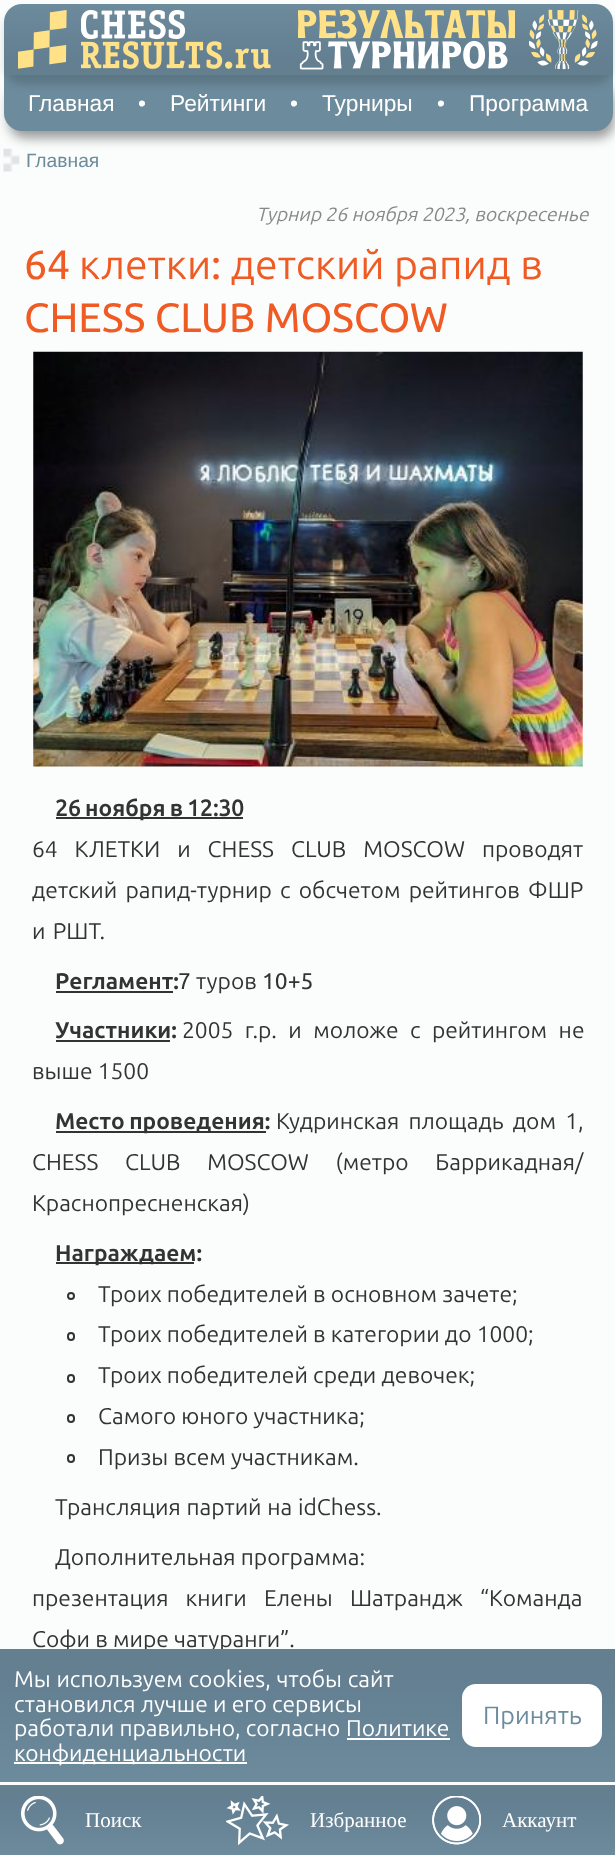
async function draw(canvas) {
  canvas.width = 615
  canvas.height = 1855
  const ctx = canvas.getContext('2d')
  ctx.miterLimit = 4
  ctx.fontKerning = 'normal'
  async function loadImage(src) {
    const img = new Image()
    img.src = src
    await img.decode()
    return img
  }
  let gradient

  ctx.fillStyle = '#fbfcfc'
  ctx.fillRect(0, 0, 615, 1855)
  ctx.drawImage(await loadImage('image4.png'), 3, 148, 17, 24)
  ctx.fillStyle = '#00000066'
  ctx.filter = 'blur(6px)'
  ctx.beginPath()
  ctx.roundRect(9, 86, 605, 52, 16)
  ctx.fill()
  ctx.filter = 'none'
  ctx.fillStyle = '#6c8b9c'
  ctx.beginPath()
  ctx.roundRect(4, 75, 609, 56, [0, 0, 18, 18])
  ctx.fill()
  ctx.fillStyle = '#00000026'
  ctx.filter = 'blur(4.5px)'
  ctx.beginPath()
  ctx.roundRect(4, 12, 609, 72, 18)
  ctx.fill()
  ctx.filter = 'none'
  gradient = ctx.createLinearGradient(308, 3.5, 308, 75)
  gradient.addColorStop(0, '#6c8b9c')
  gradient.addColorStop(0.78, '#637f91')
  gradient.addColorStop(1, '#63808f')
  ctx.fillStyle = gradient
  ctx.beginPath()
  ctx.roundRect(4, 4, 609, 71, [18, 18, 0, 0])
  ctx.fill()
  ctx.drawImage(await loadImage('image0.png'), 18, 10, 49, 59)
  ctx.drawImage(await loadImage('image1.png'), 81, 10, 190, 59)
  ctx.drawImage(await loadImage('image2.png'), 298, 9, 217, 61)
  ctx.drawImage(await loadImage('image3.png'), 529, 9, 69, 61)
  ctx.font = '22.75px Liberation Sans'
  ctx.fillStyle = '#fff'
  ctx.fillText('Главная', 28, 111)
  ctx.fillText('•', 138, 111)
  ctx.fillText('Рейтинги', 170, 111)
  ctx.fillText('•', 290, 111)
  ctx.fillText('Турниры', 322, 111)
  ctx.fillText('•', 437, 111)
  ctx.fillText('Программа', 469, 111)
  ctx.font = '19.25px Liberation Sans'
  ctx.fillStyle = '#6c8b9c'
  ctx.fillText('Главная', 26, 167)
  ctx.font = 'italic 19.25px Ubuntu'
  ctx.fillStyle = '#888'
  ctx.fillText('Турнир 26 ноября 2023, воскресенье', 256, 221)
  ctx.font = '41px Ubuntu'
  ctx.fillStyle = '#f05a23'
  ctx.fillText('64', 24, 279)
  ctx.font = '41px "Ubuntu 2"'
  ctx.fillText('клетки', 79, 279)
  ctx.font = '41px Ubuntu'
  ctx.fillText(':', 211, 279)
  ctx.font = '41px "Ubuntu 2"'
  ctx.fillText('детский рапид в', 231, 279)
  ctx.font = '41px Ubuntu'
  ctx.fillText('CHESS CLUB MOSCOW', 24, 332)
  ctx.drawImage(await loadImage('image5.png'), 33, 351, 550, 416)
  ctx.font = 'bold 22.75px Ubuntu'
  ctx.fillStyle = '#333'
  ctx.fillText('26', 55, 816)
  ctx.fillRect(56, 817, 187, 2)
  ctx.wordSpacing = '-1px'
  ctx.font = 'bold 22.75px "Ubuntu 2"'
  ctx.fillText('ноября в', 85, 816)
  ctx.wordSpacing = '0px'
  ctx.font = 'bold 22.75px Ubuntu'
  ctx.fillText('12:30', 187, 816)
  ctx.wordSpacing = '11.75px'
  ctx.font = '22.75px "Ubuntu 2"'
  ctx.fillText('64 КЛЕТКИ и CHESS CLUB MOSCOW проводят', 32, 857)
  ctx.wordSpacing = '3px'
  ctx.fillText('детский рапид-турнир с обсчетом рейтингов ФШР', 32, 898)
  ctx.wordSpacing = '2px'
  ctx.fillText('и РШТ.', 32, 939)
  ctx.wordSpacing = '0px'
  ctx.font = 'bold 22.75px "Ubuntu 2"'
  ctx.fillText('Регламент:', 55, 989)
  ctx.fillRect(56, 991, 117, 2)
  ctx.font = '22.75px Ubuntu'
  ctx.fillText('7', 178, 989)
  ctx.font = '22.75px "Ubuntu 2"'
  ctx.fillText('туров', 196, 989)
  ctx.font = '22.75px Ubuntu'
  ctx.fillText('10+5', 262, 989)
  ctx.font = 'bold 22.75px "Ubuntu 2"'
  ctx.fillText('Участники:', 55, 1038)
  ctx.fillRect(56, 1040, 114, 2)
  ctx.wordSpacing = '6.25px'
  ctx.font = '22.75px "Ubuntu 2"'
  ctx.fillText('2005 г.р. и моложе с рейтингом не', 182, 1038)
  ctx.wordSpacing = '0px'
  ctx.fillText('выше 1500', 32, 1079)
  ctx.fillRect(56, 1131, 210, 2)
  ctx.wordSpacing = '-1px'
  ctx.font = 'bold 22.75px "Ubuntu 2"'
  ctx.fillText('Место проведения:', 55, 1129)
  ctx.wordSpacing = '4px'
  ctx.font = '22.75px "Ubuntu 2"'
  ctx.fillText('Кудринская площадь дом 1,', 276, 1129)
  ctx.wordSpacing = '21.5px'
  ctx.fillText('CHESS CLUB MOSCOW (метро Баррикадная/', 32, 1170)
  ctx.wordSpacing = '0px'
  ctx.fillText('Краснопресненская)', 32, 1211)
  ctx.fillRect(56, 1262, 138, 2)
  ctx.font = 'bold 22.75px "Ubuntu 2"'
  ctx.fillText('Награждаем:', 55, 1261)
  ctx.beginPath()
  ctx.arc(71, 1296, 3, 0, 2 * Math.PI)
  ctx.strokeStyle = '#333'
  ctx.lineWidth = 2
  ctx.stroke()
  ctx.font = '22.75px "Ubuntu 2"'
  ctx.fillText('Троих победителей в основном зачете;', 98, 1302)
  ctx.beginPath()
  ctx.roundRect(68, 1333, 6, 7, 3)
  ctx.stroke()
  ctx.fillText('Троих победителей в категории до 1000;', 98, 1342)
  ctx.beginPath()
  ctx.roundRect(68, 1375, 6, 7, 3)
  ctx.stroke()
  ctx.fillText('Троих победителей среди девочек;', 98, 1383)
  ctx.beginPath()
  ctx.roundRect(68, 1415, 6, 7, 3)
  ctx.stroke()
  ctx.fillText('Самого юного участника;', 98, 1424)
  ctx.beginPath()
  ctx.roundRect(68, 1455, 6, 7, 3)
  ctx.stroke()
  ctx.fillText('Призы всем участникам.', 98, 1465)
  ctx.wordSpacing = '0.5px'
  ctx.fillText('Трансляция партий на idChess.', 55, 1515)
  ctx.wordSpacing = '0px'
  ctx.fillText('Дополнительная программа:', 55, 1565)
  ctx.wordSpacing = '12px'
  ctx.fillText('презентация книги Елены Шатрандж “Команда', 32, 1606)
  ctx.wordSpacing = '0px'
  ctx.fillText('Софи в мире чатуранги”.', 32, 1647)
  gradient = ctx.createLinearGradient(308, 1855, 308, 1785)
  gradient.addColorStop(0, '#6c8b9c')
  gradient.addColorStop(0.78, '#637f91')
  gradient.addColorStop(1, '#63808f')
  ctx.fillStyle = gradient
  ctx.fillRect(0, 1785, 615, 70)
  ctx.drawImage(await loadImage('image6.png'), 21, 1796, 43, 49)
  ctx.font = '21px Liberation Serif'
  ctx.fillStyle = '#fff'
  ctx.fillText('Поиск', 85, 1827)
  ctx.drawImage(await loadImage('image7.png'), 226, 1796, 63, 49)
  ctx.fillText('Избранное', 310, 1827)
  ctx.drawImage(await loadImage('image8.png'), 432, 1796, 49, 49)
  ctx.fillText('Аккаунт', 502, 1827)
  gradient = ctx.createLinearGradient(308, 1782, 308, 1649)
  gradient.addColorStop(0, '#6c8b9c')
  gradient.addColorStop(0.78, '#637f91')
  gradient.addColorStop(1, '#63808f')
  ctx.fillStyle = gradient
  ctx.fillRect(0, 1649, 615, 133)
  ctx.wordSpacing = '0.5px'
  ctx.font = '22.75px "Ubuntu 2"'
  ctx.fillStyle = '#fff'
  ctx.fillText('Мы используем cookies, чтобы сайт', 14, 1687)
  ctx.wordSpacing = '0px'
  ctx.fillText('становился лучше и его сервисы', 14, 1712)
  ctx.fillText('работали правильно, согласно', 14, 1736)
  ctx.fillText('Политике', 346, 1736)
  ctx.fillRect(347, 1738, 103, 2)
  ctx.fillRect(14, 1762, 233, 2)
  ctx.fillText('конфиденциальности', 14, 1761)
  ctx.beginPath()
  ctx.roundRect(462, 1684, 140, 63, 14)
  ctx.fill()
  ctx.font = '25px "Ubuntu 2"'
  ctx.fillStyle = '#6c8b9c'
  ctx.fillText('Принять', 483, 1724)
}

draw(document.querySelector('canvas'))
